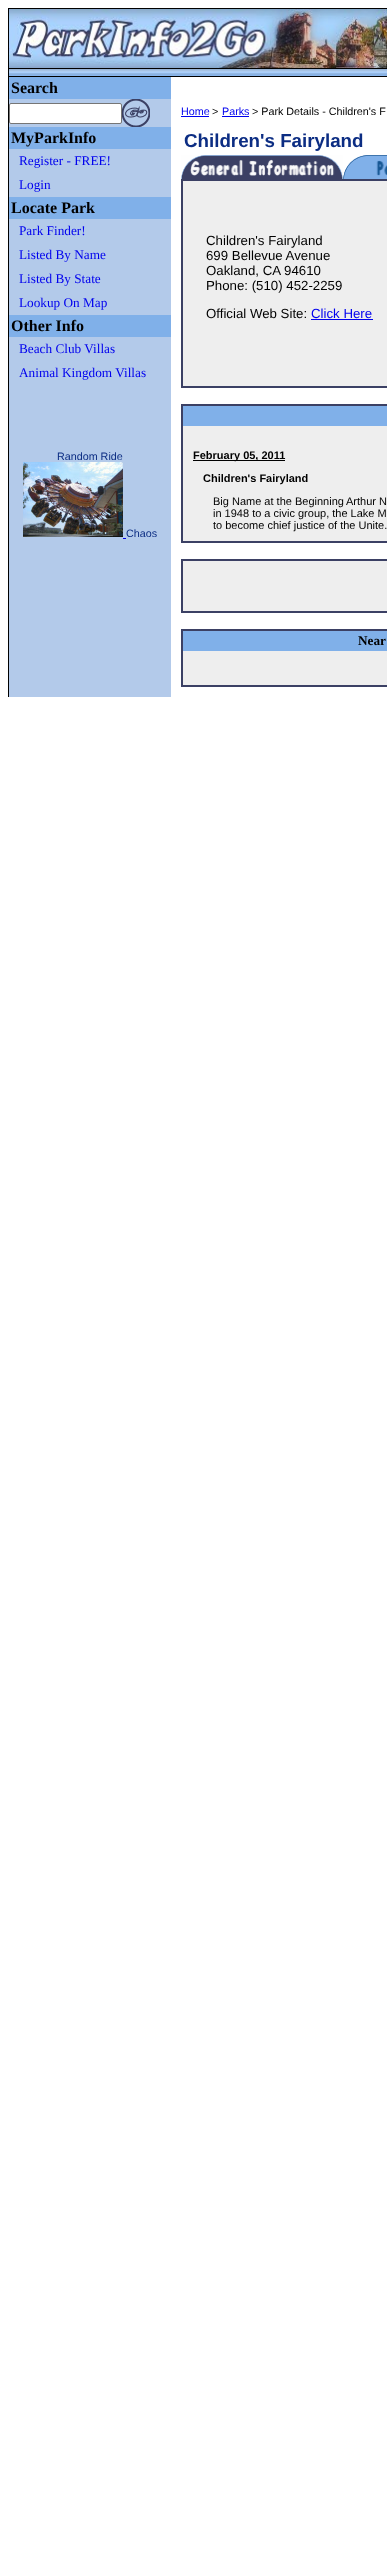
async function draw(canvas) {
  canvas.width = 387
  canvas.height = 2549
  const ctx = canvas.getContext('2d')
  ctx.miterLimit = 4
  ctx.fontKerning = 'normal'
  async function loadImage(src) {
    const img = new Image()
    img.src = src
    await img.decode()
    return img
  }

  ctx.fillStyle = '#fff'
  ctx.fillRect(0, 0, 387, 2549)
  ctx.fillStyle = '#000'
  ctx.fillRect(8, 8, 379, 1)
  ctx.fillRect(8, 8, 1, 60)
  ctx.drawImage(await loadImage('image0.png'), 9, 9, 378, 59)
  ctx.strokeStyle = '#000'
  ctx.strokeRect(8.5, 68.5, 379, 8)
  ctx.drawImage(await loadImage('image1.png'), 9, 69, 378, 7)
  ctx.fillStyle = '#b3caea'
  ctx.fillRect(9, 99, 162, 598)
  ctx.fillStyle = '#000'
  ctx.fillRect(8, 77, 1, 620)
  ctx.fillStyle = '#80b0e9'
  ctx.fillRect(9, 77, 162, 22)
  ctx.font = 'bold 16px Liberation Serif'
  ctx.fillStyle = '#000'
  ctx.fillText('Search', 11, 93)
  ctx.fillStyle = '#fff'
  ctx.beginPath()
  ctx.roundRect(9.5, 103.5, 112, 20, 1.5)
  ctx.fill()
  ctx.strokeStyle = '#767676'
  ctx.stroke()
  ctx.drawImage(await loadImage('image2.png'), 122, 99, 28, 28)
  ctx.fillStyle = '#80b0e9'
  ctx.fillRect(9, 127, 162, 22)
  ctx.fillStyle = '#000'
  ctx.fillText('MyParkInfo', 11, 143)
  ctx.font = '13.25px Liberation Serif'
  ctx.fillStyle = '#00e'
  ctx.fillText('Register - FREE!', 19, 165)
  ctx.fillText('Login', 19, 189)
  ctx.fillStyle = '#80b0e9'
  ctx.fillRect(9, 197, 162, 22)
  ctx.font = 'bold 16px Liberation Serif'
  ctx.fillStyle = '#000'
  ctx.fillText('Locate Park', 11, 213)
  ctx.font = '13.25px Liberation Serif'
  ctx.fillStyle = '#00e'
  ctx.fillText('Park Finder!', 19, 235)
  ctx.fillText('Listed By Name', 19, 259)
  ctx.fillText('Listed By State', 19, 283)
  ctx.fillText('Lookup On Map', 19, 307)
  ctx.fillStyle = '#80b0e9'
  ctx.fillRect(9, 315, 162, 22)
  ctx.font = 'bold 16px Liberation Serif'
  ctx.fillStyle = '#000'
  ctx.fillText('Other Info', 11, 331)
  ctx.font = '13.25px Liberation Serif'
  ctx.fillStyle = '#00e'
  ctx.fillText('Beach Club Villas', 19, 353)
  ctx.fillText('Animal Kingdom Villas', 19, 377)
  ctx.font = '10.75px Liberation Sans'
  ctx.fillStyle = '#0c2d83'
  ctx.fillText('Random Ride', 57, 460)
  ctx.drawImage(await loadImage('image3.png'), 23, 462, 100, 75)
  ctx.fillText('Chaos', 126, 537)
  ctx.fillStyle = '#00e'
  ctx.fillRect(123, 538, 3, 1)
  ctx.fillText('Home', 181, 115)
  ctx.fillRect(181, 116, 28, 1)
  ctx.fillStyle = '#000'
  ctx.fillText('>', 212, 115)
  ctx.fillStyle = '#00e'
  ctx.fillText('Parks', 222, 115)
  ctx.fillRect(222, 116, 27, 1)
  ctx.fillStyle = '#000'
  ctx.fillText('> Park Details - Children\'s F', 252, 115)
  ctx.font = 'bold 18.75px Liberation Sans'
  ctx.fillStyle = '#0c2d83'
  ctx.fillText('Children\'s Fairyland', 184, 147)
  ctx.drawImage(await loadImage('image4.png'), 181, 155, 162, 24)
  ctx.drawImage(await loadImage('image5.png'), 343, 155, 44, 24)
  ctx.fillStyle = '#eee'
  ctx.beginPath()
  ctx.rect(182, 180, 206, 207)
  ctx.fill()
  ctx.strokeStyle = '#3b4064'
  ctx.lineWidth = 2
  ctx.stroke()
  ctx.font = '13.25px Liberation Sans'
  ctx.fillStyle = '#000'
  ctx.fillText('Children\'s Fairyland', 206, 245)
  ctx.fillText('699 Bellevue Avenue', 206, 260)
  ctx.fillText('Oakland, CA 94610', 206, 275)
  ctx.fillText('Phone: (510) 452-2259', 206, 290)
  ctx.fillText('Official Web Site:', 206, 318)
  ctx.fillStyle = '#00e'
  ctx.fillText('Click Here', 311, 318)
  ctx.fillRect(311, 319, 62, 1)
  ctx.fillStyle = '#eee'
  ctx.fillRect(183, 426, 204, 115)
  ctx.strokeRect(182, 405, 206, 137)
  ctx.fillStyle = '#80b0e9'
  ctx.fillRect(183, 406, 204, 20)
  ctx.fillStyle = '#000'
  ctx.fillRect(193, 460, 92, 1)
  ctx.font = 'bold 11px Liberation Sans'
  ctx.fillText('February 05, 2011', 193, 459)
  ctx.fillText('Children\'s Fairyland', 203, 482)
  ctx.font = '11px Liberation Sans'
  ctx.fillText('Big Name at the Beginning', 213, 505)
  ctx.fillText('Arthur N', 346, 505)
  ctx.fillText('in 1948 to a civic group, the Lake M', 213, 517)
  ctx.fillText('to become chief justice of the Unite.', 213, 529)
  ctx.fillStyle = '#eee'
  ctx.beginPath()
  ctx.rect(182, 560, 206, 52)
  ctx.fill()
  ctx.stroke()
  ctx.fillRect(183, 651, 204, 34)
  ctx.strokeRect(182, 630, 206, 56)
  ctx.fillStyle = '#80b0e9'
  ctx.fillRect(183, 631, 204, 20)
  ctx.font = 'bold 13.25px Liberation Serif'
  ctx.fillStyle = '#000'
  ctx.fillText('Near', 358, 645)
}

draw(document.querySelector('canvas'))
